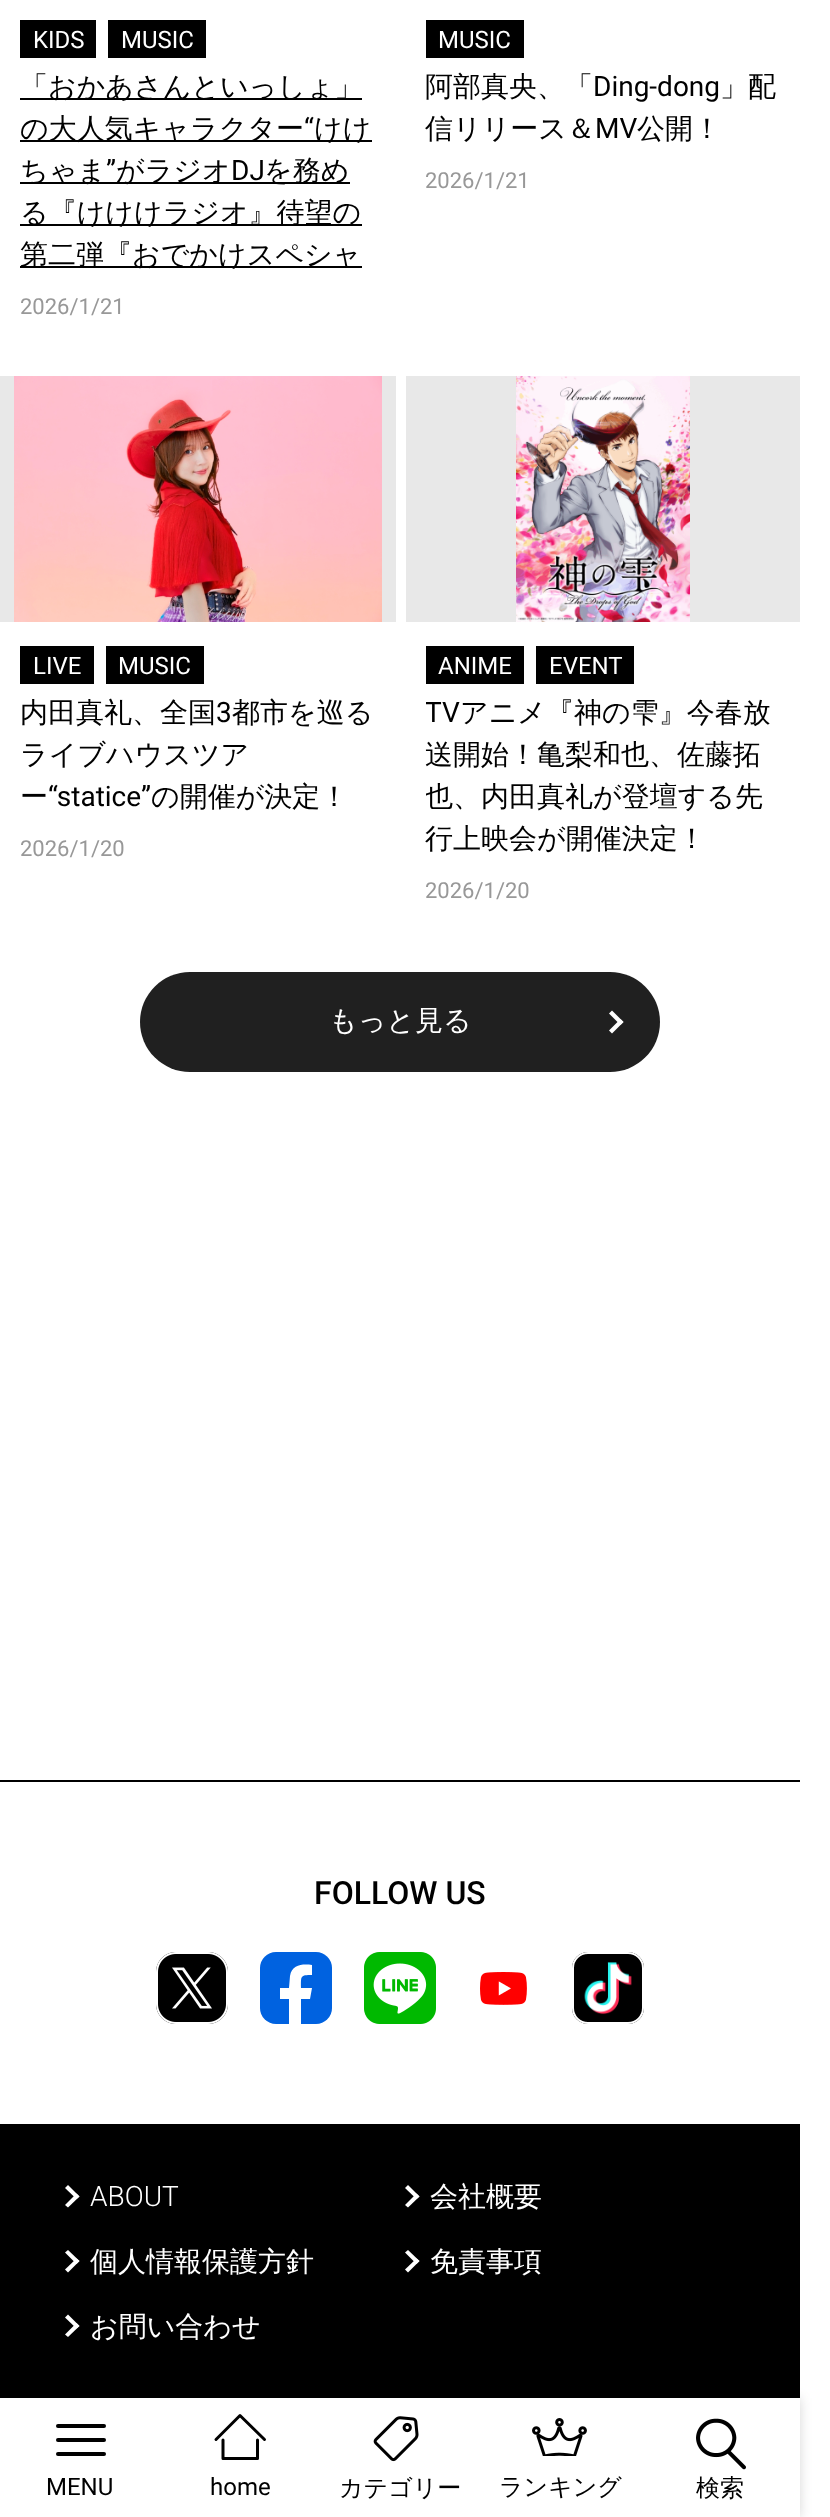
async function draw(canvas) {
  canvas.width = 830
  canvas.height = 2517
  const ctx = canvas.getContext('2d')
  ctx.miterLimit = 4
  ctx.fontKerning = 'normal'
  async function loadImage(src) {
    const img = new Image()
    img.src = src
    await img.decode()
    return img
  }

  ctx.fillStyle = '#fff'
  ctx.fillRect(0, 0, 830, 2517)
  ctx.fillStyle = '#000'
  ctx.fillRect(20, 20, 76, 38)
  ctx.font = '24px Roboto'
  ctx.fillStyle = '#fff'
  ctx.fillText('KIDS', 33, 48)
  ctx.fillStyle = '#000'
  ctx.fillRect(108, 20, 98, 38)
  ctx.fillStyle = '#fff'
  ctx.fillText('MUSIC', 121, 48)
  ctx.fillStyle = '#000'
  ctx.fillRect(20, 98, 342, 2)
  ctx.font = '500 28px WenQuanYi Zen Hei'
  ctx.fillText('「おかあさんといっしょ」', 20, 96)
  ctx.fillRect(20, 140, 352, 2)
  ctx.fillText('の大人気キャラクター', 20, 138)
  ctx.font = '28px Roboto'
  ctx.fillText('“', 304, 138)
  ctx.font = '500 28px WenQuanYi Zen Hei'
  ctx.fillText('けけ', 314, 138)
  ctx.fillRect(20, 182, 330, 2)
  ctx.fillText('ちゃま', 20, 180)
  ctx.font = '28px Roboto'
  ctx.fillText('”', 106, 180)
  ctx.font = '500 28px WenQuanYi Zen Hei'
  ctx.fillText('がラジオ', 116, 180)
  ctx.font = '28px Roboto'
  ctx.fillText('DJ', 231, 180)
  ctx.font = '500 28px WenQuanYi Zen Hei'
  ctx.fillText('を務め', 264, 180)
  ctx.fillRect(20, 224, 342, 2)
  ctx.fillText('る『けけけラジオ』待望の', 20, 222)
  ctx.fillRect(20, 266, 342, 2)
  ctx.fillText('第二弾『おでかけスペシャ', 20, 264)
  ctx.font = '22px Roboto'
  ctx.fillStyle = '#989898'
  ctx.fillText('2026/1/21', 20, 314)
  ctx.fillStyle = '#000'
  ctx.fillRect(426, 20, 98, 38)
  ctx.font = '24px Roboto'
  ctx.fillStyle = '#fff'
  ctx.fillText('MUSIC', 438, 48)
  ctx.font = '500 28px WenQuanYi Zen Hei'
  ctx.fillStyle = '#000'
  ctx.fillText('阿部真央、「', 425, 96)
  ctx.font = '28px Roboto'
  ctx.fillText('Ding-dong', 593, 96)
  ctx.font = '500 28px WenQuanYi Zen Hei'
  ctx.fillText('」配', 720, 96)
  ctx.fillText('信リリース＆', 425, 138)
  ctx.font = '28px Roboto'
  ctx.fillText('MV', 595, 138)
  ctx.font = '500 28px WenQuanYi Zen Hei'
  ctx.fillText('公開！', 637, 138)
  ctx.font = '22px Roboto'
  ctx.fillStyle = '#989898'
  ctx.fillText('2026/1/21', 425, 188)
  ctx.fillStyle = '#e8e8e8'
  ctx.fillRect(0, 376, 396, 246)
  ctx.drawImage(await loadImage('image0.png'), 14, 376, 368, 246)
  ctx.fillStyle = '#000'
  ctx.fillRect(20, 646, 74, 38)
  ctx.font = '24px Roboto'
  ctx.fillStyle = '#fff'
  ctx.fillText('LIVE', 33, 674)
  ctx.fillStyle = '#000'
  ctx.fillRect(106, 646, 98, 38)
  ctx.fillStyle = '#fff'
  ctx.fillText('MUSIC', 118, 674)
  ctx.font = '500 28px WenQuanYi Zen Hei'
  ctx.fillStyle = '#000'
  ctx.fillText('内田真礼、全国', 20, 722)
  ctx.font = '28px Roboto'
  ctx.fillText('3', 216, 722)
  ctx.font = '500 28px WenQuanYi Zen Hei'
  ctx.fillText('都市を巡る', 232, 722)
  ctx.fillText('ライブハウスツア', 20, 764)
  ctx.fillText('ー', 20, 806)
  ctx.font = '28px Roboto'
  ctx.fillText('“statice”', 48, 806)
  ctx.font = '500 28px WenQuanYi Zen Hei'
  ctx.fillText('の開催が決定！', 151, 806)
  ctx.font = '22px Roboto'
  ctx.fillStyle = '#989898'
  ctx.fillText('2026/1/20', 20, 856)
  ctx.fillStyle = '#e8e8e8'
  ctx.fillRect(406, 376, 394, 246)
  ctx.drawImage(await loadImage('image1.png'), 516, 376, 174, 246)
  ctx.fillStyle = '#000'
  ctx.fillRect(426, 646, 98, 38)
  ctx.font = '24px Roboto'
  ctx.fillStyle = '#fff'
  ctx.fillText('ANIME', 438, 674)
  ctx.fillStyle = '#000'
  ctx.fillRect(536, 646, 98, 38)
  ctx.fillStyle = '#fff'
  ctx.fillText('EVENT', 549, 674)
  ctx.save()
  ctx.beginPath()
  ctx.rect(426, 692, 354, 168)
  ctx.clip()
  ctx.font = '28px Roboto'
  ctx.fillStyle = '#000'
  ctx.fillText('TV', 425, 722)
  ctx.restore()
  ctx.font = '500 28px WenQuanYi Zen Hei'
  ctx.fillStyle = '#000'
  ctx.fillText('アニメ『神の雫』今春放', 460, 722)
  ctx.fillText('送開始！亀梨和也、佐藤拓', 425, 764)
  ctx.save()
  ctx.beginPath()
  ctx.rect(426, 692, 354, 168)
  ctx.clip()
  ctx.fillText('也、内田真礼が登壇する先', 425, 806)
  ctx.restore()
  ctx.fillText('行上映会が開催決定！', 425, 848)
  ctx.font = '22px Roboto'
  ctx.fillStyle = '#989898'
  ctx.fillText('2026/1/20', 425, 898)
  ctx.fillStyle = '#202020'
  ctx.beginPath()
  ctx.roundRect(140, 972, 520, 100, 50)
  ctx.fill()
  ctx.font = '500 28px WenQuanYi Zen Hei'
  ctx.fillStyle = '#fff'
  ctx.fillText('もっと見る', 329, 1030)
  ctx.beginPath()
  ctx.moveTo(612, 1010.5)
  ctx.lineTo(623.5, 1022)
  ctx.lineTo(620.5, 1025)
  ctx.lineTo(609, 1013.5)
  ctx.closePath()
  ctx.fill()
  ctx.beginPath()
  ctx.moveTo(620.5, 1019)
  ctx.lineTo(623.5, 1022)
  ctx.lineTo(612, 1033.5)
  ctx.lineTo(609, 1030.5)
  ctx.closePath()
  ctx.fill()
  ctx.fillStyle = '#000'
  ctx.fillRect(0, 1780, 800, 2)
  ctx.font = '500 32px Roboto'
  ctx.fillText('FOLLOW US', 314, 1904)
  ctx.drawImage(await loadImage('image2.png'), 156, 1952, 72, 72)
  ctx.fillStyle = '#0062e0'
  ctx.beginPath()
  ctx.roundRect(260, 1952, 72, 72, 16)
  ctx.fill()
  ctx.fillStyle = '#fff'
  ctx.beginPath()
  ctx.moveTo(310, 1999)
  ctx.lineTo(312, 1988)
  ctx.lineTo(301, 1988)
  ctx.bezierCurveTo(301, 1976, 300, 1975, 312, 1975)
  ctx.lineTo(312, 1965)
  ctx.bezierCurveTo(303, 1964, 292, 1964, 290, 1976)
  ctx.lineTo(289, 1988)
  ctx.lineTo(280, 1988)
  ctx.lineTo(280, 1999)
  ctx.lineTo(289, 1999)
  ctx.lineTo(289, 2024)
  ctx.lineTo(301, 2024)
  ctx.lineTo(301, 1999)
  ctx.closePath()
  ctx.fill()
  ctx.drawImage(await loadImage('image3.png'), 364, 1952, 72, 72)
  ctx.drawImage(await loadImage('image4.png'), 480, 1972, 47, 33)
  ctx.drawImage(await loadImage('image5.png'), 572, 1952, 72, 72)
  ctx.fillStyle = '#000'
  ctx.fillRect(0, 2124, 800, 274)
  ctx.fillStyle = '#fff'
  ctx.beginPath()
  ctx.moveTo(68, 2185)
  ctx.lineTo(79.5, 2196.5)
  ctx.lineTo(76.5, 2199)
  ctx.lineTo(65, 2188)
  ctx.closePath()
  ctx.fill()
  ctx.beginPath()
  ctx.moveTo(76.5, 2193.5)
  ctx.lineTo(79.5, 2196.5)
  ctx.lineTo(68, 2207.5)
  ctx.lineTo(65, 2205)
  ctx.closePath()
  ctx.fill()
  ctx.font = '300 28px Roboto'
  ctx.fillText('ABOUT', 90, 2206)
  ctx.beginPath()
  ctx.moveTo(408, 2185)
  ctx.lineTo(419.5, 2196.5)
  ctx.lineTo(416.5, 2199)
  ctx.lineTo(405, 2188)
  ctx.closePath()
  ctx.fill()
  ctx.beginPath()
  ctx.moveTo(416.5, 2193.5)
  ctx.lineTo(419.5, 2196.5)
  ctx.lineTo(408, 2207.5)
  ctx.lineTo(405, 2205)
  ctx.closePath()
  ctx.fill()
  ctx.font = '500 28px WenQuanYi Zen Hei'
  ctx.fillText('会社概要', 430, 2206)
  ctx.beginPath()
  ctx.moveTo(68, 2250)
  ctx.lineTo(79.5, 2261)
  ctx.lineTo(76.5, 2264)
  ctx.lineTo(65, 2252.5)
  ctx.closePath()
  ctx.fill()
  ctx.beginPath()
  ctx.moveTo(76.5, 2258.5)
  ctx.lineTo(79.5, 2261)
  ctx.lineTo(68, 2272.5)
  ctx.lineTo(65, 2269.5)
  ctx.closePath()
  ctx.fill()
  ctx.fillText('個人情報保護方針', 90, 2271)
  ctx.beginPath()
  ctx.moveTo(408, 2250)
  ctx.lineTo(419.5, 2261)
  ctx.lineTo(416.5, 2264)
  ctx.lineTo(405, 2252.5)
  ctx.closePath()
  ctx.fill()
  ctx.beginPath()
  ctx.moveTo(416.5, 2258.5)
  ctx.lineTo(419.5, 2261)
  ctx.lineTo(408, 2272.5)
  ctx.lineTo(405, 2269.5)
  ctx.closePath()
  ctx.fill()
  ctx.fillText('免責事項', 430, 2271)
  ctx.beginPath()
  ctx.moveTo(68, 2314.5)
  ctx.lineTo(79.5, 2326)
  ctx.lineTo(76.5, 2328.5)
  ctx.lineTo(65, 2317.5)
  ctx.closePath()
  ctx.fill()
  ctx.beginPath()
  ctx.moveTo(76.5, 2323)
  ctx.lineTo(79.5, 2326)
  ctx.lineTo(68, 2337)
  ctx.lineTo(65, 2334.5)
  ctx.closePath()
  ctx.fill()
  ctx.fillText('お問い合わせ', 90, 2336)
  ctx.fillStyle = '#00000029'
  ctx.filter = 'blur(6px)'
  ctx.beginPath()
  ctx.rect(0, 2398, 800, 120)
  ctx.fill()
  ctx.filter = 'none'
  ctx.fillStyle = '#fff'
  ctx.fillRect(0, 2398, 800, 119)
  ctx.fillStyle = '#000'
  ctx.beginPath()
  ctx.roundRect(56, 2424, 50, 4, 2)
  ctx.fill()
  ctx.beginPath()
  ctx.roundRect(56, 2438, 50, 4, 2)
  ctx.fill()
  ctx.beginPath()
  ctx.roundRect(56, 2452, 50, 4, 2)
  ctx.fill()
  ctx.font = '24px Roboto'
  ctx.fillText('MENU', 46, 2495)
  ctx.beginPath()
  ctx.moveTo(264.5, 2439.5)
  ctx.lineTo(240, 2415.5)
  ctx.lineTo(216, 2439.5)
  ctx.moveTo(257.5, 2440)
  ctx.lineTo(257.5, 2458.5)
  ctx.lineTo(223, 2458.5)
  ctx.lineTo(223, 2440)
  ctx.strokeStyle = '#000'
  ctx.lineWidth = 3
  ctx.lineCap = 'round'
  ctx.lineJoin = 'round'
  ctx.stroke()
  ctx.fillText('home', 210, 2495)
  ctx.drawImage(await loadImage('image6.png'), 373, 2416, 46, 46)
  ctx.font = '500 24px WenQuanYi Zen Hei'
  ctx.fillText('カテゴリー', 339, 2496)
  ctx.drawImage(await loadImage('image7.png'), 532, 2418, 55, 38)
  ctx.fillText('ランキング', 499, 2495)
  ctx.drawImage(await loadImage('image8.png'), 696, 2418, 50, 52)
  ctx.fillText('検索', 696, 2496)
}

draw(document.querySelector('canvas'))
